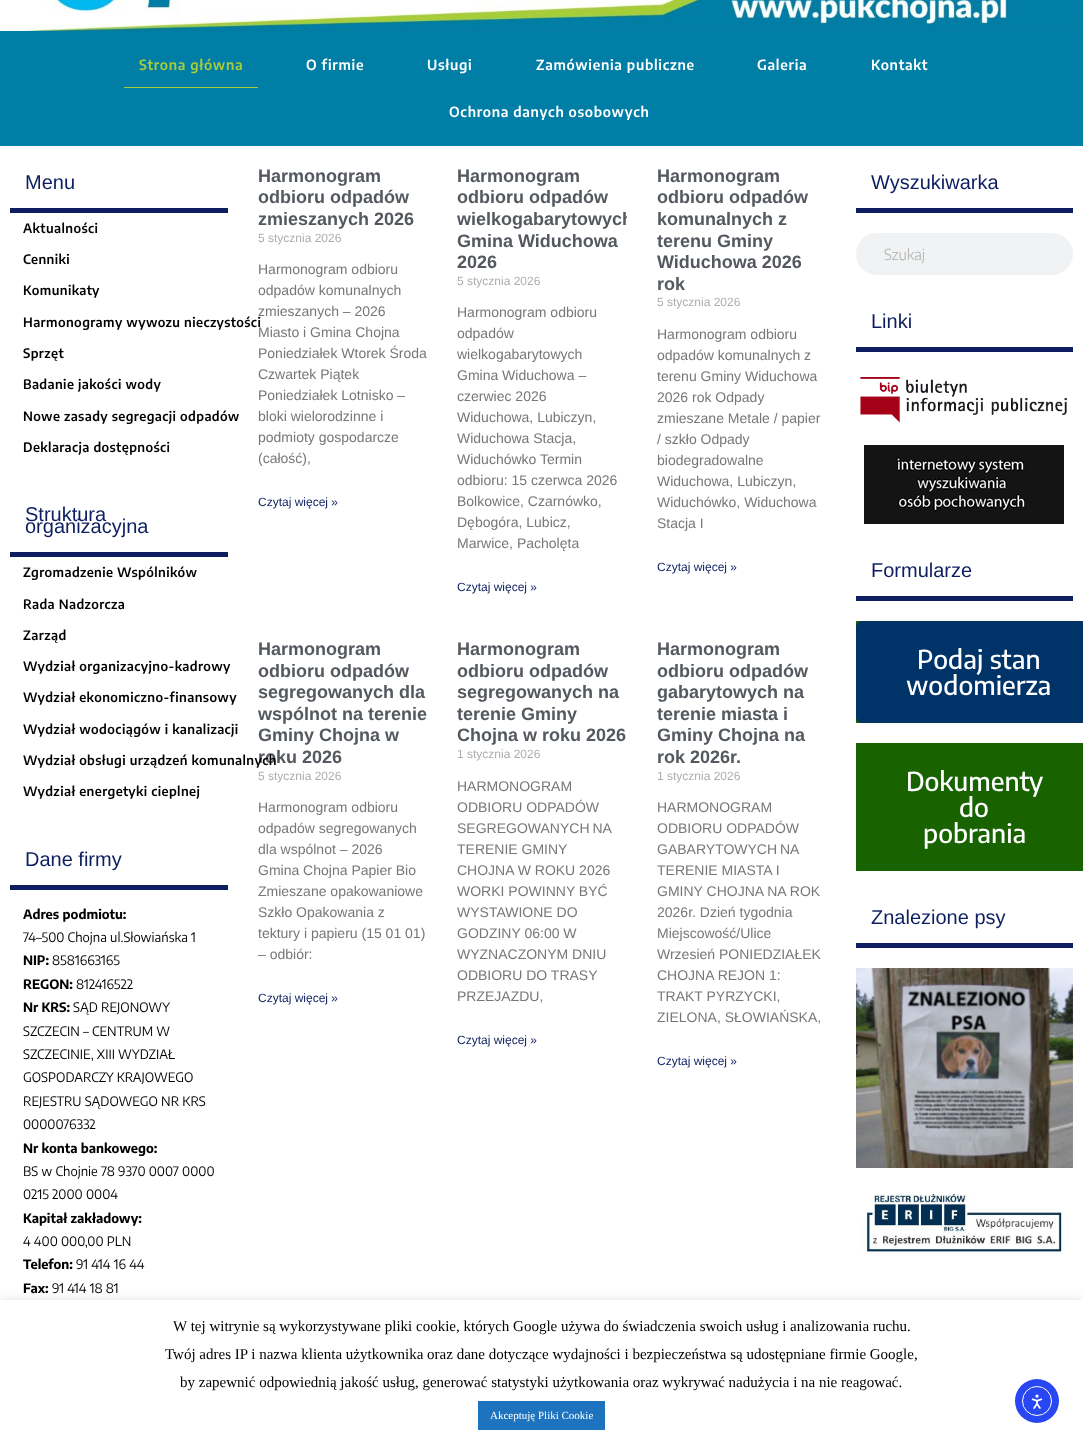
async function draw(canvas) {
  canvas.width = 1083
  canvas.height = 1447
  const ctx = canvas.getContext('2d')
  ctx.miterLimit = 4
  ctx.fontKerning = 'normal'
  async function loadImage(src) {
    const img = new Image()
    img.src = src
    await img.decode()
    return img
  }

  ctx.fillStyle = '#fff'
  ctx.fillRect(0, 0, 1083, 1447)
  ctx.drawImage(await loadImage('image0.png'), 0, 0, 1083, 31)
  ctx.fillStyle = '#007ea6'
  ctx.fillRect(0, 31, 1083, 115)
  ctx.letterSpacing = '0.7px'
  ctx.font = '600 14px Encode Sans Condensed'
  ctx.fillStyle = '#a7cc3c'
  ctx.fillText('Strona główna', 139, 70)
  ctx.fillRect(124, 87, 134, 1)
  ctx.fillStyle = '#fff'
  ctx.fillText('O firmie', 306, 70)
  ctx.fillText('Usługi', 427, 70)
  ctx.fillText('Zamówienia publiczne', 536, 70)
  ctx.fillText('Galeria', 757, 70)
  ctx.fillText('Kontakt', 871, 70)
  ctx.fillText('Ochrona danych osobowych', 449, 117)
  ctx.fillStyle = '#0d1f61'
  ctx.fillRect(10, 208, 218, 5)
  ctx.letterSpacing = '0px'
  ctx.font = '20px Liberation Sans'
  ctx.fillText('Menu', 25, 189)
  ctx.letterSpacing = '0.4px'
  ctx.font = '600 13px Encode Sans Condensed'
  ctx.fillStyle = '#000'
  ctx.fillText('Aktualności', 23, 233)
  ctx.fillText('Cenniki', 23, 264)
  ctx.fillText('Komunikaty', 23, 295)
  ctx.fillText('Harmonogramy wywozu nieczystości', 23, 327)
  ctx.fillText('Sprzęt', 23, 358)
  ctx.fillText('Badanie jakości wody', 23, 389)
  ctx.fillText('Nowe zasady segregacji odpadów', 23, 421)
  ctx.fillText('Deklaracja dostępności', 23, 452)
  ctx.fillStyle = '#0d1f61'
  ctx.fillRect(10, 552, 218, 5)
  ctx.letterSpacing = '0px'
  ctx.font = '20px Liberation Sans'
  ctx.fillText('Struktura', 25, 521)
  ctx.fillText('organizacyjna', 25, 533)
  ctx.letterSpacing = '0.4px'
  ctx.font = '600 13px Encode Sans Condensed'
  ctx.fillStyle = '#000'
  ctx.fillText('Zgromadzenie Wspólników', 23, 577)
  ctx.fillText('Rada Nadzorcza', 23, 609)
  ctx.fillText('Zarząd', 23, 640)
  ctx.fillText('Wydział organizacyjno-kadrowy', 23, 671)
  ctx.fillText('Wydział ekonomiczno-finansowy', 23, 702)
  ctx.fillText('Wydział wodociągów i kanalizacji', 23, 734)
  ctx.letterSpacing = '0px'
  ctx.font = 'bold 18px Liberation Sans'
  ctx.fillStyle = '#54595f'
  ctx.fillText('roku 2026', 258, 763)
  ctx.letterSpacing = '0.4px'
  ctx.font = '600 13px Encode Sans Condensed'
  ctx.fillStyle = '#000'
  ctx.fillText('Wydział obsługi urządzeń komunalnych', 23, 765)
  ctx.fillText('Wydział energetyki cieplnej', 23, 796)
  ctx.fillStyle = '#0d1f61'
  ctx.fillRect(10, 885, 218, 5)
  ctx.letterSpacing = '0px'
  ctx.font = '20px Liberation Sans'
  ctx.fillText('Dane firmy', 25, 866)
  ctx.font = 'bold 13px Encode Sans Condensed'
  ctx.fillStyle = '#000'
  ctx.fillText('Adres podmiotu:', 23, 919)
  ctx.font = '13px Encode Sans Condensed'
  ctx.fillText('74–500 Chojna ul.Słowiańska 1', 23, 942)
  ctx.font = 'bold 13px Encode Sans Condensed'
  ctx.fillText('NIP:', 23, 965)
  ctx.font = '13px Encode Sans Condensed'
  ctx.fillText('8581663165', 52, 965)
  ctx.font = 'bold 13px Encode Sans Condensed'
  ctx.fillText('REGON:', 23, 989)
  ctx.font = '13px Encode Sans Condensed'
  ctx.fillText('812416522', 76, 989)
  ctx.font = 'bold 13px Encode Sans Condensed'
  ctx.fillText('Nr KRS:', 23, 1012)
  ctx.font = '13px Encode Sans Condensed'
  ctx.fillText('SĄD REJONOWY', 73, 1012)
  ctx.fillText('SZCZECIN – CENTRUM W', 23, 1036)
  ctx.fillText('SZCZECINIE, XIII WYDZIAŁ', 23, 1059)
  ctx.fillText('GOSPODARCZY KRAJOWEGO', 23, 1082)
  ctx.fillText('REJESTRU SĄDOWEGO NR KRS', 23, 1106)
  ctx.fillText('0000076332', 23, 1129)
  ctx.font = 'bold 13px Encode Sans Condensed'
  ctx.fillText('Nr konta bankowego:', 23, 1153)
  ctx.font = '13px Encode Sans Condensed'
  ctx.fillText('BS w Chojnie 78 9370 0007 0000', 23, 1176)
  ctx.fillText('0215 2000 0004', 23, 1199)
  ctx.font = 'bold 13px Encode Sans Condensed'
  ctx.fillText('Kapitał zakładowy:', 23, 1223)
  ctx.font = '13px Encode Sans Condensed'
  ctx.fillText('4 400 000,00 PLN', 23, 1246)
  ctx.font = 'bold 13px Encode Sans Condensed'
  ctx.fillText('Telefon:', 23, 1269)
  ctx.font = '13px Encode Sans Condensed'
  ctx.fillText('91 414 16 44', 76, 1269)
  ctx.font = 'bold 13px Encode Sans Condensed'
  ctx.fillText('Fax:', 23, 1293)
  ctx.font = '13px Encode Sans Condensed'
  ctx.fillText('91 414 18 81', 52, 1293)
  ctx.font = 'bold 18px Liberation Sans'
  ctx.fillStyle = '#54595f'
  ctx.fillText('Harmonogram', 258, 182)
  ctx.fillText('odbioru odpadów', 258, 203)
  ctx.fillText('zmieszanych 2026', 258, 225)
  ctx.font = '12px Liberation Sans'
  ctx.fillStyle = '#adadad'
  ctx.fillText('5 stycznia 2026', 258, 242)
  ctx.font = '14px Liberation Sans'
  ctx.fillStyle = '#777'
  ctx.fillText('Harmonogram odbioru', 258, 274)
  ctx.fillText('odpadów komunalnych', 258, 295)
  ctx.fillText('zmieszanych – 2026', 258, 316)
  ctx.fillText('Miasto i Gmina Chojna', 258, 337)
  ctx.fillText('Poniedziałek Wtorek Środa', 258, 358)
  ctx.fillText('Czwartek Piątek', 258, 379)
  ctx.fillText('Poniedziałek Lotnisko –', 258, 400)
  ctx.fillText('bloki wielorodzinne i', 258, 421)
  ctx.fillText('podmioty gospodarcze', 258, 442)
  ctx.fillText('(całość),', 258, 463)
  ctx.font = '12px Liberation Sans'
  ctx.fillStyle = '#0d1f61'
  ctx.fillText('Czytaj więcej »', 258, 506)
  ctx.font = 'bold 18px Liberation Sans'
  ctx.fillStyle = '#54595f'
  ctx.fillText('Harmonogram', 457, 182)
  ctx.fillText('odbioru odpadów', 457, 203)
  ctx.save()
  ctx.beginPath()
  ctx.rect(457, 166, 170, 438)
  ctx.clip()
  ctx.fillText('wielkogabarytowych', 457, 225)
  ctx.restore()
  ctx.fillText('Gmina Widuchowa', 457, 247)
  ctx.fillText('2026', 457, 268)
  ctx.font = '12px Liberation Sans'
  ctx.fillStyle = '#adadad'
  ctx.fillText('5 stycznia 2026', 457, 285)
  ctx.font = '14px Liberation Sans'
  ctx.fillStyle = '#777'
  ctx.fillText('Harmonogram odbioru', 457, 317)
  ctx.fillText('odpadów', 457, 338)
  ctx.fillText('wielkogabarytowych', 457, 359)
  ctx.fillText('Gmina Widuchowa –', 457, 380)
  ctx.fillText('czerwiec 2026', 457, 401)
  ctx.fillText('Widuchowa, Lubiczyn,', 457, 422)
  ctx.fillText('Widuchowa Stacja,', 457, 443)
  ctx.fillText('Widuchówko Termin', 457, 464)
  ctx.fillText('odbioru: 15 czerwca 2026', 457, 485)
  ctx.fillText('Bolkowice, Czarnówko,', 457, 506)
  ctx.fillText('Dębogóra, Lubicz,', 457, 527)
  ctx.fillText('Marwice, Pacholęta', 457, 548)
  ctx.font = '12px Liberation Sans'
  ctx.fillStyle = '#0d1f61'
  ctx.fillText('Czytaj więcej »', 457, 591)
  ctx.font = 'bold 18px Liberation Sans'
  ctx.fillStyle = '#54595f'
  ctx.fillText('Harmonogram', 657, 182)
  ctx.fillText('odbioru odpadów', 657, 203)
  ctx.fillText('komunalnych z', 657, 225)
  ctx.fillText('terenu Gminy', 657, 247)
  ctx.fillText('Widuchowa 2026', 657, 268)
  ctx.fillText('rok', 657, 290)
  ctx.font = '12px Liberation Sans'
  ctx.fillStyle = '#adadad'
  ctx.fillText('5 stycznia 2026', 657, 306)
  ctx.font = '14px Liberation Sans'
  ctx.fillStyle = '#777'
  ctx.fillText('Harmonogram odbioru', 657, 339)
  ctx.fillText('odpadów komunalnych z', 657, 360)
  ctx.fillText('terenu Gminy Widuchowa', 657, 381)
  ctx.fillText('2026 rok Odpady', 657, 402)
  ctx.fillText('zmieszane Metale / papier', 657, 423)
  ctx.save()
  ctx.beginPath()
  ctx.rect(657, 166, 169, 438)
  ctx.clip()
  ctx.fillText('/ szkło Odpady', 657, 444)
  ctx.restore()
  ctx.fillText('biodegradowalne', 657, 465)
  ctx.fillText('Widuchowa, Lubiczyn,', 657, 486)
  ctx.fillText('Widuchówko, Widuchowa', 657, 507)
  ctx.fillText('Stacja I', 657, 528)
  ctx.font = '12px Liberation Sans'
  ctx.fillStyle = '#0d1f61'
  ctx.fillText('Czytaj więcej »', 657, 571)
  ctx.font = 'bold 18px Liberation Sans'
  ctx.fillStyle = '#54595f'
  ctx.fillText('Harmonogram', 258, 655)
  ctx.fillText('odbioru odpadów', 258, 677)
  ctx.fillText('segregowanych dla', 258, 698)
  ctx.fillText('wspólnot na terenie', 258, 720)
  ctx.fillText('Gminy Chojna w', 258, 741)
  ctx.font = '12px Liberation Sans'
  ctx.fillStyle = '#adadad'
  ctx.fillText('5 stycznia 2026', 258, 780)
  ctx.font = '14px Liberation Sans'
  ctx.fillStyle = '#777'
  ctx.fillText('Harmonogram odbioru', 258, 812)
  ctx.fillText('odpadów segregowanych', 258, 833)
  ctx.fillText('dla wspólnot – 2026', 258, 854)
  ctx.fillText('Gmina Chojna Papier Bio', 258, 875)
  ctx.fillText('Zmieszane opakowaniowe', 258, 896)
  ctx.fillText('Szkło Opakowania z', 258, 917)
  ctx.fillText('tektury i papieru (15 01 01)', 258, 938)
  ctx.fillText('– odbiór:', 258, 959)
  ctx.font = '12px Liberation Sans'
  ctx.fillStyle = '#0d1f61'
  ctx.fillText('Czytaj więcej »', 258, 1002)
  ctx.font = 'bold 18px Liberation Sans'
  ctx.fillStyle = '#54595f'
  ctx.fillText('Harmonogram', 457, 655)
  ctx.fillText('odbioru odpadów', 457, 677)
  ctx.fillText('segregowanych na', 457, 698)
  ctx.fillText('terenie Gminy', 457, 720)
  ctx.fillText('Chojna w roku 2026', 457, 741)
  ctx.font = '12px Liberation Sans'
  ctx.fillStyle = '#adadad'
  ctx.fillText('1 stycznia 2026', 457, 758)
  ctx.font = '14px Liberation Sans'
  ctx.fillStyle = '#777'
  ctx.fillText('HARMONOGRAM', 457, 791)
  ctx.fillText('ODBIORU ODPADÓW', 457, 812)
  ctx.wordSpacing = '-1px'
  ctx.fillText('SEGREGOWANYCH NA', 457, 833)
  ctx.wordSpacing = '0px'
  ctx.fillText('TERENIE GMINY', 457, 854)
  ctx.fillText('CHOJNA W ROKU 2026', 457, 875)
  ctx.fillText('WORKI POWINNY BYĆ', 457, 896)
  ctx.fillText('WYSTAWIONE DO', 457, 917)
  ctx.fillText('GODZINY 06:00 W', 457, 938)
  ctx.fillText('WYZNACZONYM DNIU', 457, 959)
  ctx.fillText('ODBIORU DO TRASY', 457, 980)
  ctx.fillText('PRZEJAZDU,', 457, 1001)
  ctx.font = '12px Liberation Sans'
  ctx.fillStyle = '#0d1f61'
  ctx.fillText('Czytaj więcej »', 457, 1044)
  ctx.font = 'bold 18px Liberation Sans'
  ctx.fillStyle = '#54595f'
  ctx.fillText('Harmonogram', 657, 655)
  ctx.fillText('odbioru odpadów', 657, 677)
  ctx.fillText('gabarytowych na', 657, 698)
  ctx.fillText('terenie miasta i', 657, 720)
  ctx.fillText('Gminy Chojna na', 657, 741)
  ctx.fillText('rok 2026r.', 657, 763)
  ctx.font = '12px Liberation Sans'
  ctx.fillStyle = '#adadad'
  ctx.fillText('1 stycznia 2026', 657, 780)
  ctx.font = '14px Liberation Sans'
  ctx.fillStyle = '#777'
  ctx.fillText('HARMONOGRAM', 657, 812)
  ctx.fillText('ODBIORU ODPADÓW', 657, 833)
  ctx.wordSpacing = '-1px'
  ctx.fillText('GABARYTOWYCH NA', 657, 854)
  ctx.wordSpacing = '0px'
  ctx.fillText('TERENIE MIASTA I', 657, 875)
  ctx.fillText('GMINY CHOJNA NA ROK', 657, 896)
  ctx.fillText('2026r. Dzień tygodnia', 657, 917)
  ctx.fillText('Miejscowość/Ulice', 657, 938)
  ctx.fillText('Wrzesień PONIEDZIAŁEK', 657, 959)
  ctx.fillText('CHOJNA REJON 1:', 657, 980)
  ctx.fillText('TRAKT PYRZYCKI,', 657, 1001)
  ctx.fillText('ZIELONA, SŁOWIAŃSKA,', 657, 1022)
  ctx.font = '12px Liberation Sans'
  ctx.fillStyle = '#0d1f61'
  ctx.fillText('Czytaj więcej »', 657, 1065)
  ctx.fillRect(856, 208, 217, 5)
  ctx.font = '20px Liberation Sans'
  ctx.fillText('Wyszukiwarka', 871, 189)
  ctx.fillStyle = '#f1f2f3'
  ctx.beginPath()
  ctx.roundRect(856, 233, 217, 42, 21)
  ctx.fill()
  ctx.font = '300 15px Encode Sans Condensed'
  ctx.fillStyle = '#adadad'
  ctx.fillText('Szukaj', 884, 260)
  ctx.fillStyle = '#0d1f61'
  ctx.fillRect(856, 347, 217, 5)
  ctx.font = '20px Liberation Sans'
  ctx.fillText('Linki', 871, 328)
  ctx.drawImage(await loadImage('image1.png'), 860, 377, 207, 46)
  ctx.drawImage(await loadImage('image2.png'), 864, 445, 200, 79)
  ctx.fillRect(856, 596, 217, 5)
  ctx.fillText('Formularze', 871, 577)
  ctx.fillStyle = '#186300'
  ctx.fillRect(856, 621, 6, 102)
  ctx.fillStyle = '#003468'
  ctx.beginPath()
  ctx.roundRect(856, 621, 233, 102, 6)
  ctx.fill()
  ctx.font = '500 26px Encode Sans Condensed'
  ctx.fillStyle = '#fff'
  ctx.fillText('Podaj stan', 917, 669)
  ctx.fillText('wodomierza', 906, 695)
  ctx.fillStyle = '#186300'
  ctx.fillRect(856, 743, 6, 128)
  ctx.beginPath()
  ctx.roundRect(856, 743, 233, 128, 6)
  ctx.fill()
  ctx.fillStyle = '#fff'
  ctx.fillText('Dokumenty', 906, 791)
  ctx.fillText('do', 959, 817)
  ctx.fillText('pobrania', 923, 843)
  ctx.fillStyle = '#0d1f61'
  ctx.fillRect(856, 943, 217, 5)
  ctx.font = '20px Liberation Sans'
  ctx.fillText('Znalezione psy', 871, 924)
  ctx.drawImage(await loadImage('image3.png'), 856, 968, 217, 200)
  ctx.drawImage(await loadImage('image4.png'), 862, 1194, 202, 60)
  ctx.fillStyle = '#acabab4d'
  ctx.filter = 'blur(5px)'
  ctx.beginPath()
  ctx.rect(0, 1299, 1083, 147)
  ctx.fill()
  ctx.filter = 'none'
  ctx.fillStyle = '#fff'
  ctx.fillRect(0, 1300, 1083, 147)
  ctx.font = '15px Liberation Serif'
  ctx.fillStyle = '#000'
  ctx.fillText('W tej witrynie są wykorzystywane pliki cookie, których Google używa do świadczenia swoich usług i analizowania ruchu.', 173, 1331)
  ctx.fillText('Twój adres IP i nazwa klienta użytkownika oraz dane dotyczące wydajności i bezpieczeństwa są udostępniane firmie Google,', 165, 1359)
  ctx.fillText('by zapewnić odpowiednią jakość usług, generować statystyki użytkowania oraz wykrywać nadużycia i na nie reagować.', 180, 1387)
  ctx.fillStyle = '#1e73be'
  ctx.fillRect(478, 1401, 127, 29)
  ctx.font = '11px Liberation Serif'
  ctx.fillStyle = '#fff'
  ctx.fillText('Akceptuję Pliki Cookie', 490, 1419)
  ctx.fillStyle = '#2847f3'
  ctx.beginPath()
  ctx.arc(1037, 1401, 22, 0, 2 * Math.PI)
  ctx.fill()
  ctx.beginPath()
  ctx.arc(1037, 1401, 14.5, 0, 2 * Math.PI)
  ctx.strokeStyle = '#fff'
  ctx.stroke()
  ctx.drawImage(await loadImage('image5.png'), 1031, 1394, 12, 15)
}

draw(document.querySelector('canvas'))
